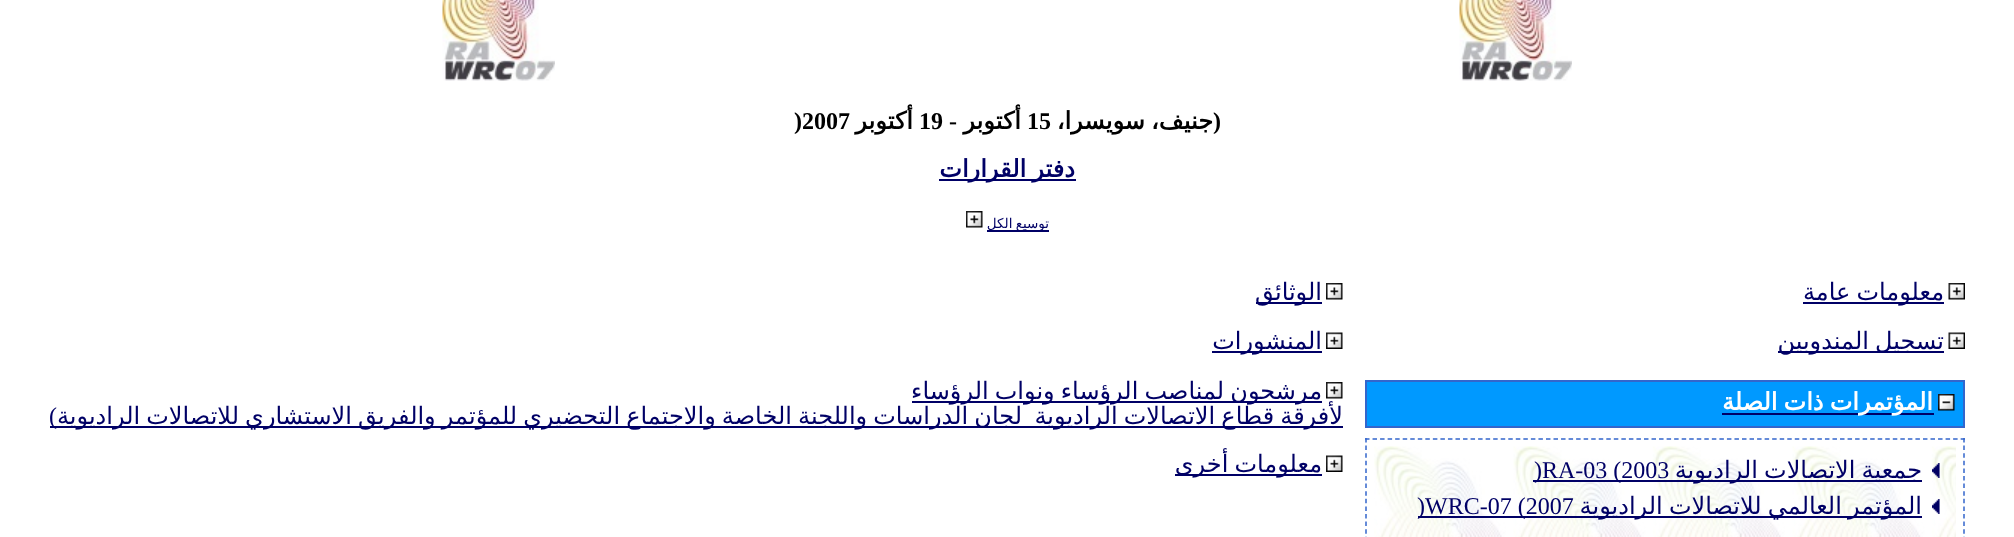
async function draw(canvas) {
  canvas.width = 2014
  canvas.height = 537
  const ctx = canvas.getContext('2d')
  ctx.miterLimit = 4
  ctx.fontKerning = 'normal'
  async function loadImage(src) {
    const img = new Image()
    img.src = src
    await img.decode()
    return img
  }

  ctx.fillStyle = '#fff'
  ctx.fillRect(0, 0, 2014, 537)
  ctx.drawImage(await loadImage('image0.png'), 1459, 0, 113, 81)
  ctx.drawImage(await loadImage('image1.png'), 442, 0, 113, 81)
  ctx.direction = 'rtl'
  ctx.font = 'bold 24px Liberation Serif'
  ctx.fillStyle = '#000'
  ctx.fillText('(', 1221, 129)
  ctx.wordSpacing = '-1.5px'
  ctx.font = 'bold 24px DejaVu Sans'
  ctx.fillText('جنيف، سويسرا،', 1213, 129)
  ctx.wordSpacing = '0px'
  ctx.direction = 'ltr'
  ctx.font = 'bold 24px Liberation Serif'
  ctx.fillText('15', 1027, 129)
  ctx.direction = 'rtl'
  ctx.font = 'bold 24px DejaVu Sans'
  ctx.fillText('أكتوبر', 1021, 129)
  ctx.font = 'bold 24px Liberation Serif'
  ctx.fillText('-', 957, 129)
  ctx.direction = 'ltr'
  ctx.fillText('19', 919, 129)
  ctx.direction = 'rtl'
  ctx.font = 'bold 24px DejaVu Sans'
  ctx.fillText('أكتوبر', 913, 129)
  ctx.direction = 'ltr'
  ctx.font = 'bold 24px Liberation Serif'
  ctx.fillText(')2007', 794, 129)
  ctx.fillStyle = '#006'
  ctx.fillRect(939, 179, 137, 2)
  ctx.wordSpacing = '-1.5px'
  ctx.direction = 'rtl'
  ctx.font = 'bold 24px DejaVu Sans'
  ctx.fillText('دفتر القرارات', 1075, 177)
  ctx.fillRect(987, 230, 62, 2)
  ctx.wordSpacing = '-1px'
  ctx.font = '13.5px DejaVu Sans'
  ctx.fillText('توسيع الكل', 1049, 228)
  ctx.drawImage(await loadImage('image2.png'), 966, 211, 17, 17)
  ctx.drawImage(await loadImage('image3.png'), 1948, 283, 17, 17)
  ctx.fillRect(1803, 302, 141, 2)
  ctx.wordSpacing = '-1.5px'
  ctx.font = '24px DejaVu Sans'
  ctx.fillText('معلومات عامة', 1944, 300)
  ctx.drawImage(await loadImage('image4.png'), 1948, 332, 17, 17)
  ctx.fillRect(1778, 351, 166, 2)
  ctx.fillText('تسجيل المندوبين', 1944, 349)
  ctx.fillStyle = '#09f'
  ctx.beginPath()
  ctx.rect(1366, 381, 598, 46)
  ctx.fill()
  ctx.strokeStyle = '#36c'
  ctx.lineWidth = 2
  ctx.stroke()
  ctx.drawImage(await loadImage('image5.png'), 1938, 394, 17, 17)
  ctx.fillStyle = '#006'
  ctx.fillRect(1722, 413, 212, 2)
  ctx.font = 'bold 24px DejaVu Sans'
  ctx.fillStyle = '#fff'
  ctx.fillText('المؤتمرات ذات الصلة', 1933, 410)
  ctx.beginPath()
  ctx.moveTo(1365, 439)
  ctx.lineTo(1965, 439)
  ctx.lineWidth = 1.5
  ctx.setLineDash([4.5, 3.04])
  ctx.stroke()
  ctx.beginPath()
  ctx.moveTo(1964, 438)
  ctx.lineTo(1964, 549)
  ctx.setLineDash([4.5, 3.1])
  ctx.stroke()
  ctx.beginPath()
  ctx.moveTo(1366, 438)
  ctx.lineTo(1366, 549)
  ctx.stroke()
  ctx.drawImage(await loadImage('image6.png'), 1374, 446, 582, 91)
  ctx.drawImage(await loadImage('image7.png'), 1932, 463, 8, 15)
  ctx.fillStyle = '#006'
  ctx.fillRect(1533, 480, 389, 2)
  ctx.font = '24px DejaVu Sans'
  ctx.fillText('جمعية الاتصالات الراديوية', 1922, 478)
  ctx.wordSpacing = '0px'
  ctx.direction = 'ltr'
  ctx.font = '24px Liberation Serif'
  ctx.fillText(')RA-03 (2003', 1534, 478)
  ctx.drawImage(await loadImage('image8.png'), 1932, 499, 8, 15)
  ctx.fillRect(1418, 516, 504, 2)
  ctx.wordSpacing = '-1.5px'
  ctx.direction = 'rtl'
  ctx.font = '24px DejaVu Sans'
  ctx.fillText('المؤتمر العالمي للاتصالات الراديوية', 1922, 514)
  ctx.wordSpacing = '0px'
  ctx.direction = 'ltr'
  ctx.font = '24px Liberation Serif'
  ctx.fillText(')WRC-07 (2007', 1417, 514)
  ctx.drawImage(await loadImage('image9.png'), 1326, 283, 17, 17)
  ctx.fillRect(1256, 302, 66, 2)
  ctx.direction = 'rtl'
  ctx.font = '24px DejaVu Sans'
  ctx.fillText('الوثائق', 1322, 300)
  ctx.drawImage(await loadImage('image10.png'), 1326, 332, 17, 17)
  ctx.fillRect(1212, 351, 110, 2)
  ctx.fillText('المنشورات', 1322, 349)
  ctx.drawImage(await loadImage('image9.png'), 1326, 382, 17, 17)
  ctx.fillRect(912, 401, 410, 2)
  ctx.wordSpacing = '-1.5px'
  ctx.fillText('مرشحون لمناصب الرؤساء ونواب الرؤساء', 1322, 399)
  ctx.fillRect(50, 426, 1293, 2)
  ctx.fillText('لأفرقة قطاع الاتصالات الراديوية', 1343, 424)
  ctx.fillText('لجان الدراسات واللجنة الخاصة والاجتماع التحضيري للمؤتمر والفريق الاستشاري للاتصالات الراديوية', 1022, 424)
  ctx.wordSpacing = '0px'
  ctx.font = '24px Liberation Serif'
  ctx.fillText(')', 57, 424)
  ctx.drawImage(await loadImage('image10.png'), 1326, 455, 17, 17)
  ctx.fillRect(1175, 474, 147, 2)
  ctx.wordSpacing = '-1.5px'
  ctx.font = '24px DejaVu Sans'
  ctx.fillText('معلومات أخرى', 1322, 472)
}

draw(document.querySelector('canvas'))
